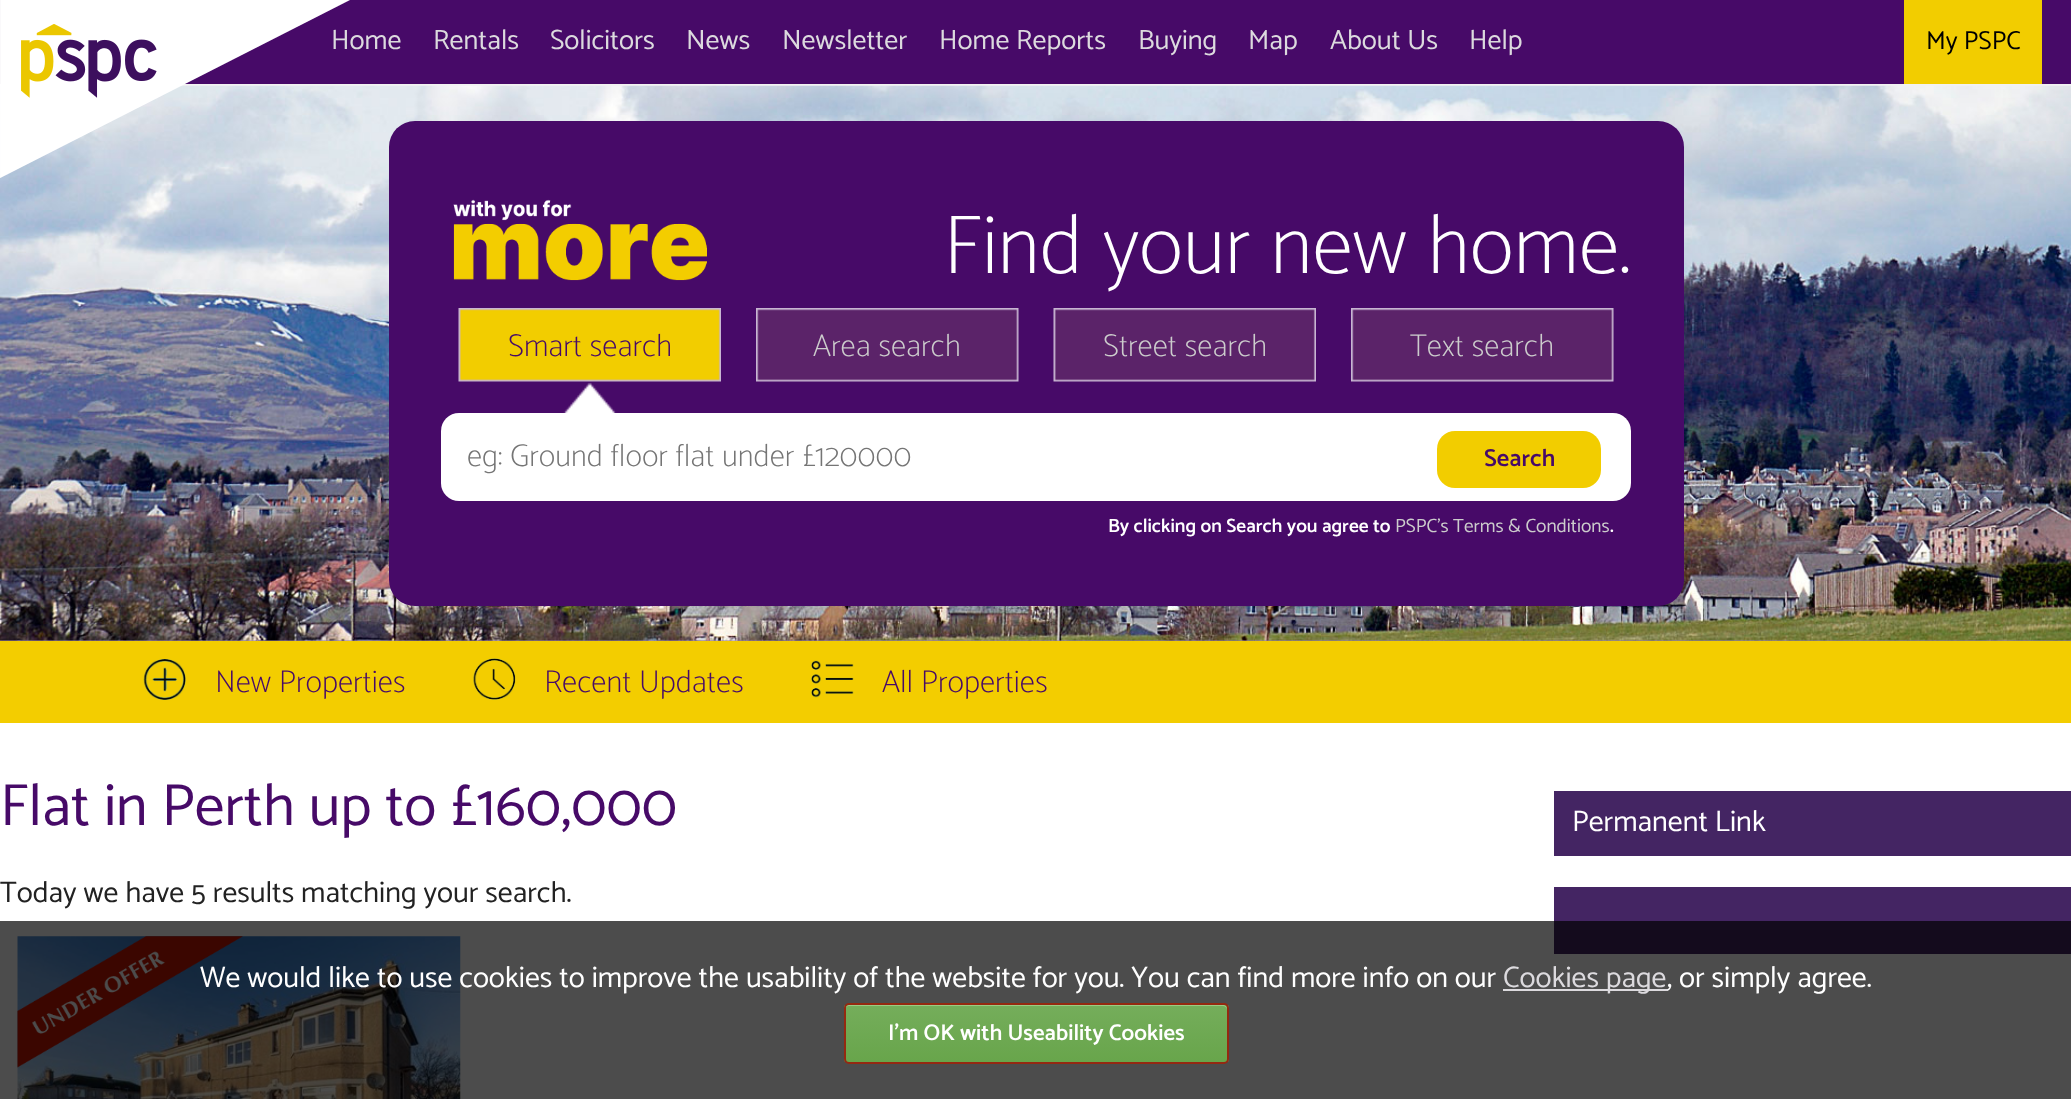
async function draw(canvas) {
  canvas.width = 2071
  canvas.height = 1099
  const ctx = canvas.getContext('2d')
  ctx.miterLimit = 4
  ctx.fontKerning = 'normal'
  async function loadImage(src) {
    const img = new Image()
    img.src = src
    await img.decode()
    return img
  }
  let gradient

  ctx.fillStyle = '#fff'
  ctx.fillRect(0, 0, 2071, 1099)
  ctx.fillStyle = '#470a68'
  ctx.fillRect(0, 0, 2071, 84)
  ctx.fillStyle = '#f2f2f2'
  ctx.fillRect(0, 84, 2071, 2)
  ctx.font = '28px Catamaran'
  ctx.fillStyle = '#dcdade'
  ctx.fillText('Home', 331, 49)
  ctx.fillStyle = '#9b81a5'
  ctx.fillRect(0, 640, 2071, 1)
  ctx.drawImage(await loadImage('image1.png'), 0, 85, 2071, 556)
  ctx.drawImage(await loadImage('image0.png'), 0, 0, 350, 178)
  ctx.fillStyle = '#dcdade'
  ctx.fillText('Rentals', 433, 49)
  ctx.fillText('Solicitors', 550, 49)
  ctx.fillText('News', 686, 49)
  ctx.fillText('Newsletter', 782, 49)
  ctx.fillText('Home Reports', 939, 49)
  ctx.fillText('Buying', 1138, 49)
  ctx.fillText('Map', 1248, 49)
  ctx.fillText('About Us', 1330, 49)
  ctx.fillText('Help', 1469, 49)
  ctx.fillStyle = '#f2cd00'
  ctx.fillRect(1904, 0, 138, 84)
  ctx.font = '26px Catamaran'
  ctx.fillStyle = '#000'
  ctx.fillText('My PSPC', 1926, 49)
  ctx.fillStyle = '#470a68'
  ctx.beginPath()
  ctx.roundRect(389, 121, 1295, 485, 26)
  ctx.fill()
  ctx.drawImage(await loadImage('image2.png'), 453, 199, 254, 82)
  ctx.font = '100 84px Catamaran'
  ctx.fillStyle = '#fff'
  ctx.fillText('Find your new home.', 943, 273)
  ctx.drawImage(await loadImage('image3.png'), 458, 308, 263, 105)
  ctx.font = '100 31.5px Catamaran'
  ctx.fillStyle = '#470a68'
  ctx.fillText('Smart search', 508, 356)
  ctx.drawImage(await loadImage('image4.png'), 756, 308, 263, 74)
  ctx.fillStyle = '#ccc'
  ctx.fillText('Area search', 813, 356)
  ctx.drawImage(await loadImage('image5.png'), 1053, 308, 263, 74)
  ctx.fillText('Street search', 1103, 356)
  ctx.drawImage(await loadImage('image4.png'), 1351, 308, 263, 74)
  ctx.fillText('Text search', 1410, 356)
  ctx.fillStyle = '#fff'
  ctx.beginPath()
  ctx.roundRect(441, 413, 1190, 88, 18)
  ctx.fill()
  ctx.fillStyle = '#757575'
  ctx.fillText('eg: Ground floor flat under £120000', 467, 466)
  ctx.fillStyle = '#f2cd00'
  ctx.beginPath()
  ctx.roundRect(1437, 431, 164, 57, 18)
  ctx.fill()
  ctx.font = '600 24.5px Catamaran'
  ctx.fillStyle = '#470a68'
  ctx.fillText('Search', 1484, 466)
  ctx.font = '600 19.25px Catamaran'
  ctx.fillStyle = '#fff'
  ctx.fillText('By clicking on Search you agree to', 1108, 532)
  ctx.font = '19.25px Catamaran'
  ctx.fillStyle = '#ccc'
  ctx.fillText('PSPC\'s Terms & Conditions', 1395, 532)
  ctx.font = '600 19.25px Catamaran'
  ctx.fillStyle = '#fff'
  ctx.fillText('.', 1610, 532)
  ctx.fillStyle = '#f3cd00'
  ctx.fillRect(0, 641, 2071, 82)
  ctx.drawImage(await loadImage('image6.png'), 143, 659, 43, 41)
  ctx.font = '100 31.5px Catamaran'
  ctx.fillStyle = '#470a68'
  ctx.fillText('New Properties', 215, 692)
  ctx.drawImage(await loadImage('image7.png'), 473, 658, 43, 42)
  ctx.fillText('Recent Updates', 544, 692)
  ctx.drawImage(await loadImage('image8.png'), 811, 660, 43, 38)
  ctx.fillText('All Properties', 882, 692)
  ctx.font = '59.5px Catamaran'
  ctx.fillText('Flat in Perth up to £160,000', 0, 825)
  ctx.font = '29.75px Catamaran'
  ctx.fillStyle = '#222'
  ctx.fillText('Today we have 5 results matching your search.', 0, 902)
  ctx.drawImage(await loadImage('image9.png'), 17, 936, 444, 163)
  ctx.drawImage(await loadImage('image10.png'), 17, 936, 226, 132)
  ctx.fillStyle = '#442563'
  ctx.fillRect(1554, 791, 517, 65)
  ctx.fillStyle = '#fff'
  ctx.fillText('Permanent Link', 1572, 831)
  ctx.fillStyle = '#442563'
  ctx.fillRect(1554, 887, 517, 67)
  ctx.fillStyle = '#000000b3'
  ctx.fillRect(0, 921, 2071, 178)
  ctx.fillStyle = '#fff'
  ctx.fillText('We would like to use cookies to improve the usability of the website for you. You can find more info on our', 200, 987)
  ctx.fillStyle = '#dcdade'
  ctx.fillRect(1503, 989, 165, 2)
  ctx.fillText('Cookies page', 1503, 987)
  ctx.fillStyle = '#fff'
  ctx.fillText(', or simply agree.', 1667, 987)
  ctx.save()
  ctx.beginPath()
  ctx.roundRect(844, 1003, 385, 61, 5)
  ctx.clip()
  gradient = ctx.createLinearGradient(1036, 1005, 1036, 1062)
  gradient.addColorStop(0.05, '#74ad5a')
  gradient.addColorStop(1, '#68a54b')
  ctx.fillStyle = gradient
  ctx.fillRect(844, 1005, 385, 57)
  ctx.restore()
  ctx.fillStyle = '#9acc85'
  ctx.beginPath()
  ctx.moveTo(849, 1006)
  ctx.lineTo(1223, 1006)
  ctx.bezierCurveTo(1225, 1006, 1227, 1008, 1227, 1010)
  ctx.bezierCurveTo(1227, 1007, 1226, 1005, 1223, 1005)
  ctx.lineTo(849, 1005)
  ctx.bezierCurveTo(846, 1005, 845, 1007, 845, 1010)
  ctx.bezierCurveTo(845, 1008, 847, 1006, 849, 1006)
  ctx.closePath()
  ctx.fill()
  ctx.beginPath()
  ctx.roundRect(845, 1004, 383, 59, 4)
  ctx.strokeStyle = '#942911'
  ctx.lineWidth = 2
  ctx.stroke()
  ctx.font = '600 22.75px Catamaran'
  ctx.fillStyle = '#fff'
  ctx.fillText('I\'m OK with Useability Cookies', 888, 1040)
}

draw(document.querySelector('canvas'))
